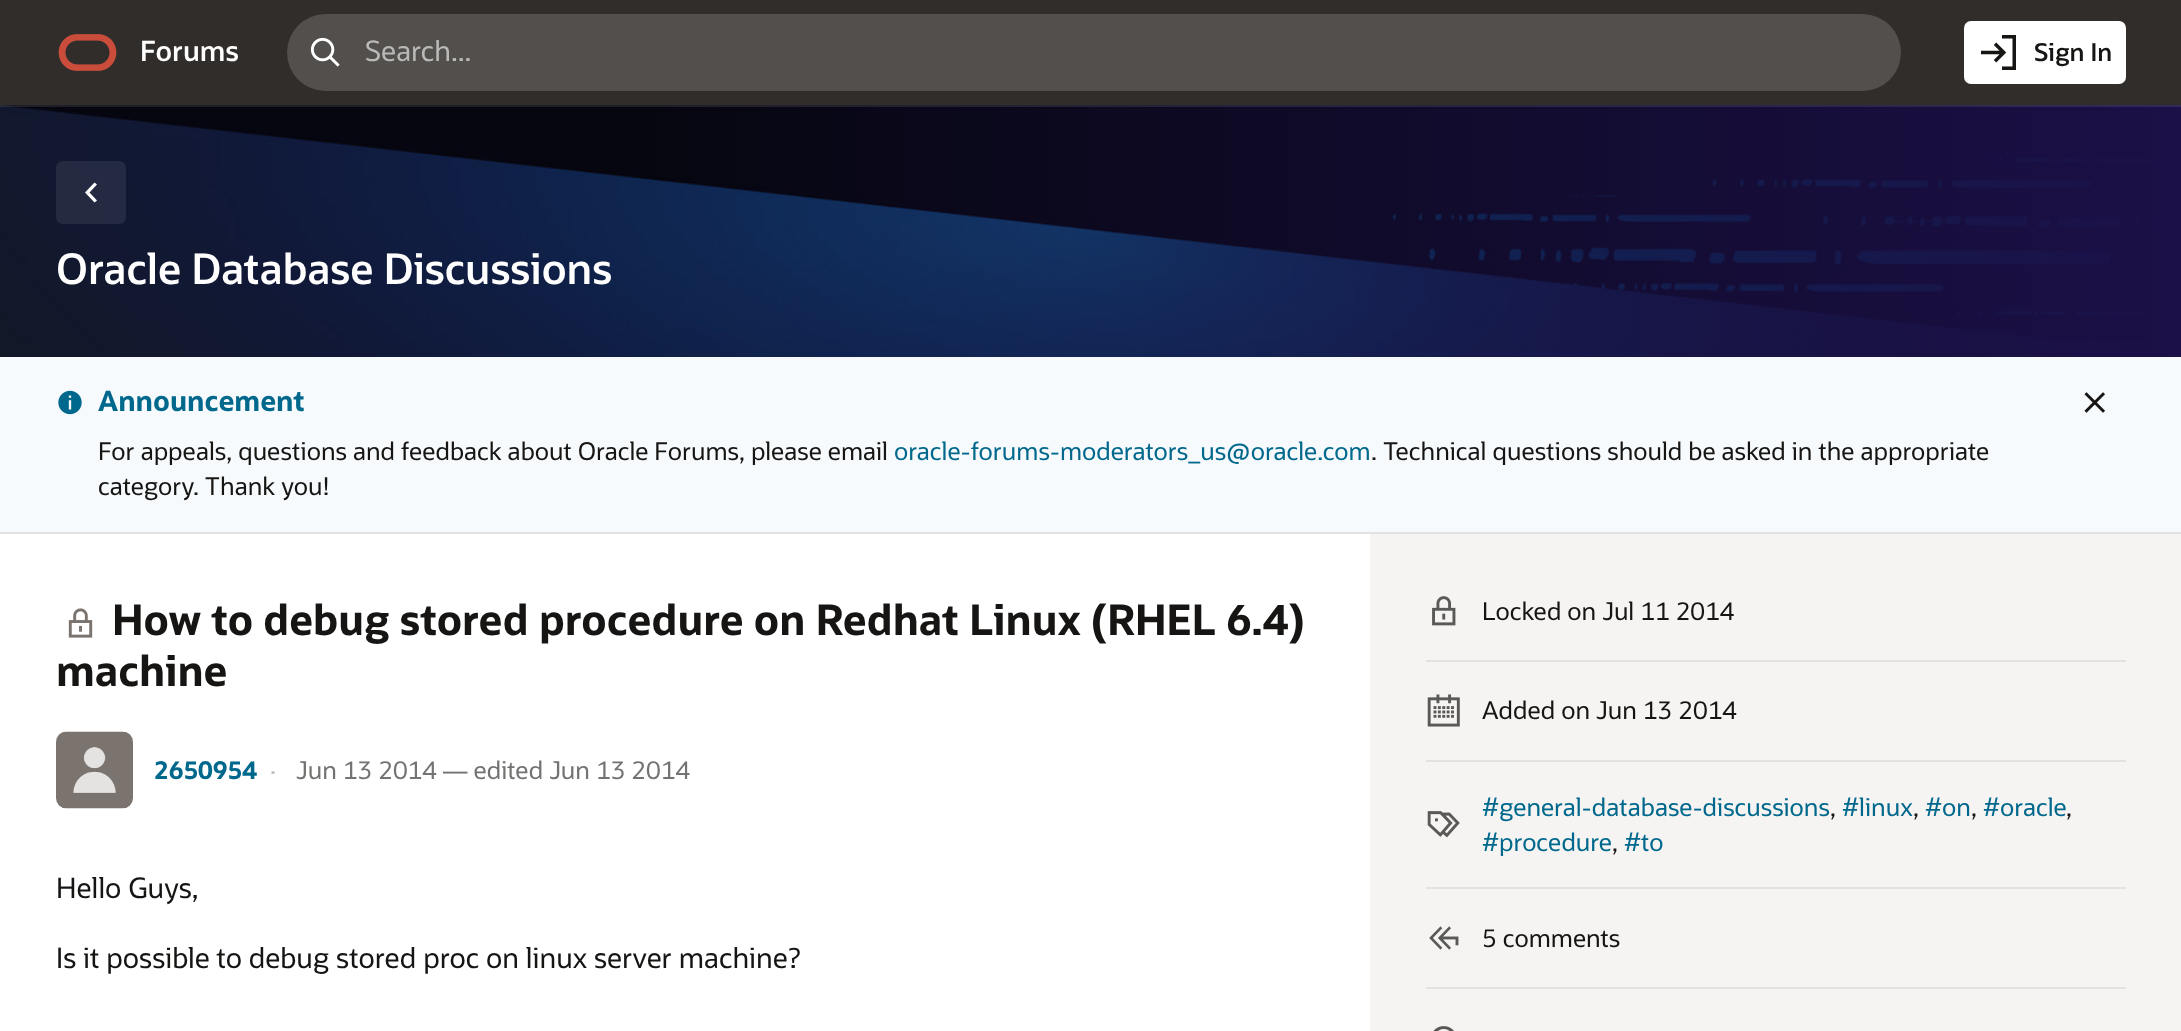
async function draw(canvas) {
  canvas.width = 2181
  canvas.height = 1031
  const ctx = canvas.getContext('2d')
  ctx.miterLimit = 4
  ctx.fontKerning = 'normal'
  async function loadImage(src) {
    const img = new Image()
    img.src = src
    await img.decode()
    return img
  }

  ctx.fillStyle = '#fff'
  ctx.fillRect(0, 0, 2181, 1031)
  ctx.drawImage(await loadImage('image3.png'), 0, 105, 2181, 252)
  ctx.strokeStyle = '#ffffff1a'
  ctx.lineWidth = 2
  ctx.strokeRect(-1, -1, 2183, 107)
  ctx.fillStyle = '#312d2a'
  ctx.fillRect(0, 0, 2181, 105)
  ctx.drawImage(await loadImage('image0.png'), 58, 34, 59, 37)
  ctx.font = '600 28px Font'
  ctx.fillStyle = '#fff'
  ctx.fillText('Forums', 140, 61)
  ctx.fillStyle = '#524f4c'
  ctx.beginPath()
  ctx.roundRect(287, 14, 1614, 77, 38.5)
  ctx.fill()
  ctx.drawImage(await loadImage('image1.png'), 310, 37, 30, 30)
  ctx.font = '28px Font'
  ctx.fillStyle = '#b9b9b8'
  ctx.fillText('Search...', 365, 61)
  ctx.fillStyle = '#fff'
  ctx.beginPath()
  ctx.roundRect(1964, 21, 162, 63, 7)
  ctx.fill()
  ctx.drawImage(await loadImage('image2.png'), 1981, 35, 35, 35)
  ctx.font = '600 24.5px Font'
  ctx.fillStyle = '#161513'
  ctx.fillText('Sign In', 2034, 61)
  ctx.fillStyle = '#fbf9f814'
  ctx.beginPath()
  ctx.roundRect(56, 161, 70, 63, 7)
  ctx.fill()
  ctx.fillStyle = '#fff'
  ctx.beginPath()
  ctx.moveTo(97, 200.5)
  ctx.lineTo(94.5, 202.5)
  ctx.lineTo(85, 192.5)
  ctx.lineTo(94.5, 182.5)
  ctx.lineTo(97, 184.5)
  ctx.lineTo(89.5, 192.5)
  ctx.closePath()
  ctx.fill()
  ctx.font = '600 42px Font'
  ctx.fillText('Oracle Database Discussions', 56, 284)
  ctx.fillStyle = '#f6fafc'
  ctx.fillRect(0, 357, 2181, 175)
  ctx.fillStyle = '#e0e3e5'
  ctx.fillRect(0, 532, 2181, 2)
  ctx.drawImage(await loadImage('image4.png'), 58, 390, 24, 25)
  ctx.font = 'bold 28px Font'
  ctx.fillStyle = '#00688c'
  ctx.fillText('Announcement', 98, 411)
  ctx.font = '24.5px Font'
  ctx.fillStyle = '#161513'
  ctx.fillText('For appeals, questions and feedback about Oracle Forums, please email', 98, 460)
  ctx.fillStyle = '#00688c'
  ctx.fillText('oracle-forums-moderators_us@oracle.com', 894, 460)
  ctx.fillStyle = '#161513'
  ctx.fillText('. Technical questions should be asked in the appropriate', 1371, 460)
  ctx.fillText('category. Thank you!', 98, 495)
  ctx.drawImage(await loadImage('image5.png'), 2084, 392, 21, 21)
  ctx.drawImage(await loadImage('image6.png'), 68, 608, 25, 30)
  ctx.font = 'bold 42px Font'
  ctx.fillText('How to debug stored procedure on Redhat Linux (RHEL 6.4)', 112, 635)
  ctx.fillText('machine', 56, 686)
  ctx.drawImage(await loadImage('image7.png'), 56, 731, 77, 78)
  ctx.font = 'bold 24.5px Font'
  ctx.fillStyle = '#00688c'
  ctx.fillText('2650954', 154, 779)
  ctx.font = '24.5px Font'
  ctx.fillStyle = '#b9b9b8'
  ctx.fillText('·', 270, 779)
  ctx.fillStyle = '#737371'
  ctx.fillText('Jun 13 2014 — edited Jun 13 2014', 296, 779)
  ctx.font = '28px Font'
  ctx.fillStyle = '#161513'
  ctx.fillText('Hello Guys,', 56, 898)
  ctx.fillText('Is it possible to debug stored proc on linux server machine?', 56, 968)
  ctx.fillStyle = '#f5f4f2'
  ctx.fillRect(1370, 534, 811, 497)
  ctx.fillStyle = '#e3e2e0'
  ctx.fillRect(1426, 660, 700, 2)
  ctx.drawImage(await loadImage('image8.png'), 1432, 596, 24, 30)
  ctx.font = '24.5px Font'
  ctx.fillStyle = '#161513'
  ctx.fillText('Locked on Jul 11 2014', 1482, 620)
  ctx.fillStyle = '#e3e2e0'
  ctx.fillRect(1426, 760, 700, 2)
  ctx.drawImage(await loadImage('image9.png'), 1427, 694, 33, 33)
  ctx.fillStyle = '#161513'
  ctx.fillText('Added on Jun 13 2014', 1482, 719)
  ctx.fillStyle = '#e3e2e0'
  ctx.fillRect(1426, 887, 700, 2)
  ctx.drawImage(await loadImage('image10.png'), 1427, 811, 33, 27)
  ctx.fillStyle = '#00688c'
  ctx.fillText('#general-database-discussions', 1482, 816)
  ctx.fillStyle = '#161513'
  ctx.fillText(',', 1830, 816)
  ctx.fillStyle = '#00688c'
  ctx.fillText('#linux', 1842, 816)
  ctx.fillStyle = '#161513'
  ctx.fillText(',', 1913, 816)
  ctx.fillStyle = '#00688c'
  ctx.fillText('#on', 1925, 816)
  ctx.fillStyle = '#161513'
  ctx.fillText(',', 1971, 816)
  ctx.fillStyle = '#00688c'
  ctx.fillText('#oracle', 1983, 816)
  ctx.fillStyle = '#161513'
  ctx.fillText(',', 2066, 816)
  ctx.fillStyle = '#00688c'
  ctx.fillText('#procedure', 1482, 851)
  ctx.fillStyle = '#161513'
  ctx.fillText(',', 1612, 851)
  ctx.fillStyle = '#00688c'
  ctx.fillText('#to', 1624, 851)
  ctx.fillStyle = '#e3e2e0'
  ctx.fillRect(1426, 987, 700, 2)
  ctx.drawImage(await loadImage('image11.png'), 1429, 926, 30, 24)
  ctx.fillStyle = '#161513'
  ctx.fillText('5 comments', 1482, 947)
  ctx.drawImage(await loadImage('image12.png'), 1433, 1026, 21, 5)
}

draw(document.querySelector('canvas'))
